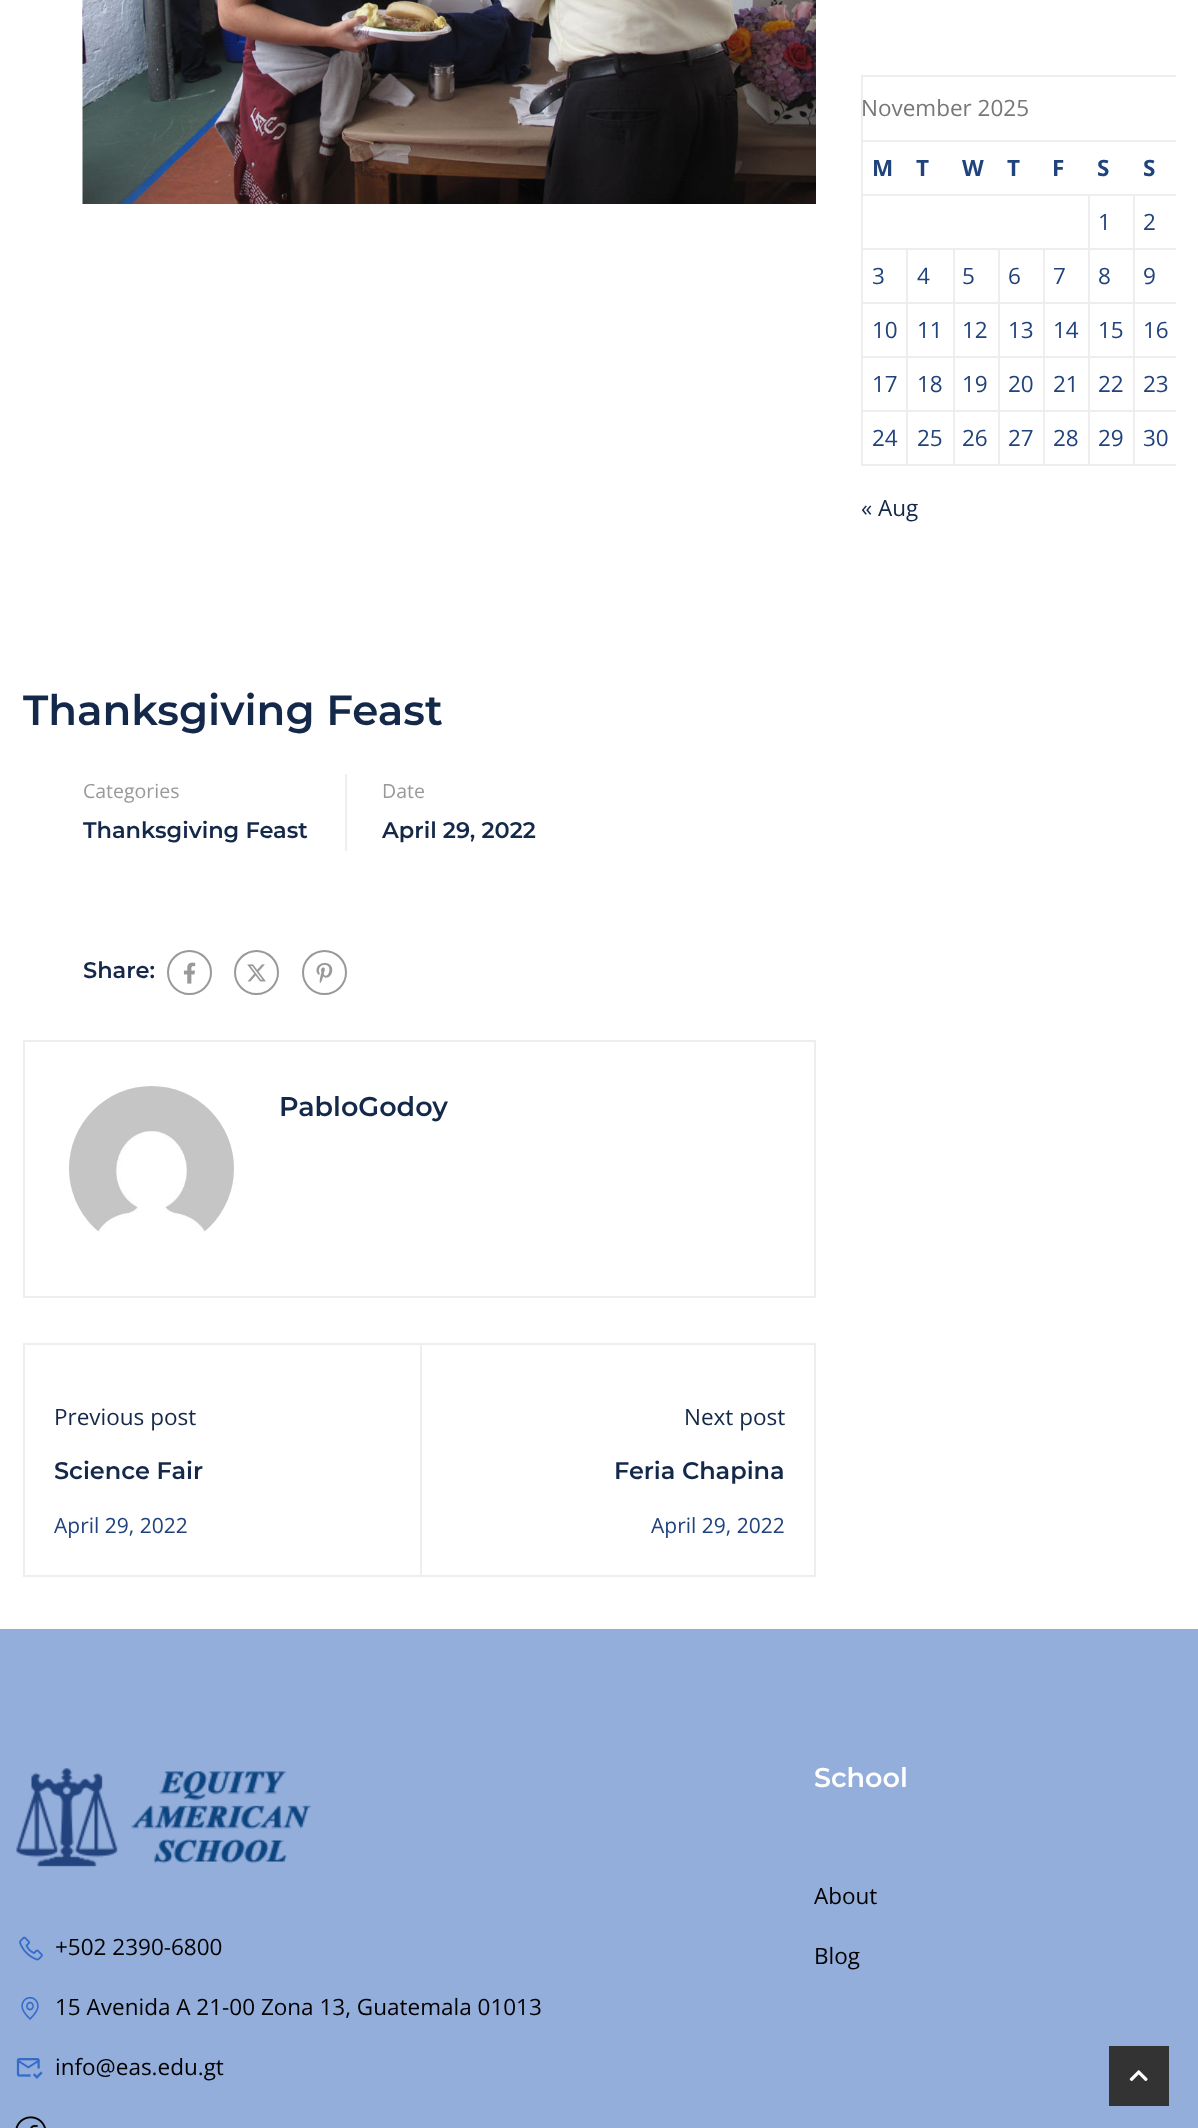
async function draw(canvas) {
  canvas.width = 1198
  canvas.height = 2128
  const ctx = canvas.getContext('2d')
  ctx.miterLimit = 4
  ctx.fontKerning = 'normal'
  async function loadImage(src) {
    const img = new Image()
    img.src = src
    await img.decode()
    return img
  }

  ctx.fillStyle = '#fff'
  ctx.fillRect(0, 0, 1198, 2128)
  ctx.fillStyle = '#eee'
  ctx.fillRect(861, 75, 315, 2)
  ctx.fillRect(861, 464, 315, 2)
  ctx.fillRect(861, 75, 2, 390)
  ctx.font = '22.5px Open Sans'
  ctx.fillStyle = '#777'
  ctx.fillText('November 2025', 861, 116)
  ctx.fillStyle = '#eee'
  ctx.fillRect(861, 140, 315, 2)
  ctx.font = 'bold 22.5px Open Sans'
  ctx.fillStyle = '#21437c'
  ctx.fillText('M', 872, 176)
  ctx.fillText('T', 916, 176)
  ctx.fillText('W', 962, 176)
  ctx.fillText('T', 1007, 176)
  ctx.fillText('F', 1052, 176)
  ctx.fillText('S', 1097, 176)
  ctx.fillText('S', 1143, 176)
  ctx.fillStyle = '#eee'
  ctx.fillRect(861, 194, 315, 2)
  ctx.font = '22.5px Open Sans'
  ctx.fillStyle = '#21437c'
  ctx.fillText('1', 1098, 230)
  ctx.fillText('2', 1143, 230)
  ctx.fillStyle = '#eee'
  ctx.fillRect(861, 248, 315, 2)
  ctx.fillStyle = '#21437c'
  ctx.fillText('3', 872, 284)
  ctx.fillText('4', 917, 284)
  ctx.fillText('5', 962, 284)
  ctx.fillText('6', 1008, 284)
  ctx.fillText('7', 1053, 284)
  ctx.fillText('8', 1098, 284)
  ctx.fillText('9', 1143, 284)
  ctx.fillStyle = '#eee'
  ctx.fillRect(861, 302, 315, 2)
  ctx.fillStyle = '#21437c'
  ctx.fillText('10', 872, 338)
  ctx.fillText('11', 917, 338)
  ctx.fillText('12', 962, 338)
  ctx.fillText('13', 1008, 338)
  ctx.fillText('14', 1053, 338)
  ctx.fillText('15', 1098, 338)
  ctx.fillText('16', 1143, 338)
  ctx.fillStyle = '#eee'
  ctx.fillRect(861, 356, 315, 2)
  ctx.fillStyle = '#21437c'
  ctx.fillText('17', 872, 392)
  ctx.fillText('18', 917, 392)
  ctx.fillText('19', 962, 392)
  ctx.fillText('20', 1008, 392)
  ctx.fillText('21', 1053, 392)
  ctx.fillText('22', 1098, 392)
  ctx.fillText('23', 1143, 392)
  ctx.fillStyle = '#eee'
  ctx.fillRect(861, 410, 315, 2)
  ctx.fillRect(906, 248, 2, 217)
  ctx.fillStyle = '#21437c'
  ctx.fillText('24', 872, 446)
  ctx.fillStyle = '#eee'
  ctx.fillRect(953, 248, 2, 217)
  ctx.fillStyle = '#21437c'
  ctx.fillText('25', 917, 446)
  ctx.fillStyle = '#eee'
  ctx.fillRect(998, 248, 2, 217)
  ctx.fillStyle = '#21437c'
  ctx.fillText('26', 962, 446)
  ctx.fillStyle = '#eee'
  ctx.fillRect(1043, 248, 2, 217)
  ctx.fillStyle = '#21437c'
  ctx.fillText('27', 1008, 446)
  ctx.fillStyle = '#eee'
  ctx.fillRect(1088, 194, 2, 271)
  ctx.fillStyle = '#21437c'
  ctx.fillText('28', 1053, 446)
  ctx.fillStyle = '#eee'
  ctx.fillRect(1133, 194, 2, 271)
  ctx.fillStyle = '#21437c'
  ctx.fillText('29', 1098, 446)
  ctx.fillText('30', 1143, 446)
  ctx.fillStyle = '#14284a'
  ctx.fillText('« Aug', 861, 516)
  ctx.drawImage(await loadImage('image0.png'), 82, 0, 734, 204)
  ctx.save()
  ctx.beginPath()
  ctx.rect(23, 678, 793, 173)
  ctx.clip()
  ctx.font = '600 42px Montserrat'
  ctx.fillText('Thanksgiving Feast', 23, 725)
  ctx.restore()
  ctx.fillStyle = '#eee'
  ctx.fillRect(345, 774, 2, 77)
  ctx.font = '19.5px Open Sans'
  ctx.fillStyle = '#999'
  ctx.fillText('Categories', 83, 798)
  ctx.font = '600 22.5px Montserrat'
  ctx.fillStyle = '#14284a'
  ctx.fillText('Thanksgiving Feast', 83, 838)
  ctx.font = '19.5px Open Sans'
  ctx.fillStyle = '#999'
  ctx.fillText('Date', 382, 798)
  ctx.font = '600 22.5px Montserrat'
  ctx.fillStyle = '#14284a'
  ctx.fillText('April 29, 2022', 382, 838)
  ctx.fillText('Share:', 83, 978)
  ctx.beginPath()
  ctx.arc(189.5, 972.5, 21.5, 0, 2 * Math.PI)
  ctx.strokeStyle = '#999'
  ctx.lineWidth = 2
  ctx.stroke()
  ctx.drawImage(await loadImage('image1.png'), 183, 962, 13, 22)
  ctx.beginPath()
  ctx.arc(256.5, 972.5, 21.5, 0, 2 * Math.PI)
  ctx.stroke()
  ctx.drawImage(await loadImage('image2.png'), 247, 964, 19, 18)
  ctx.beginPath()
  ctx.arc(324.5, 972.5, 21.5, 0, 2 * Math.PI)
  ctx.stroke()
  ctx.drawImage(await loadImage('image3.png'), 316, 962, 17, 22)
  ctx.strokeStyle = '#eee'
  ctx.strokeRect(24, 1041, 791, 256)
  ctx.drawImage(await loadImage('image4.png'), 69, 1086, 165, 148)
  ctx.font = '600 27px Montserrat'
  ctx.fillText('PabloGodoy', 279, 1116)
  ctx.strokeRect(24, 1344, 791, 232)
  ctx.font = '22.5px Open Sans'
  ctx.fillText('Previous post', 54, 1425)
  ctx.font = '600 24px Montserrat'
  ctx.fillText('Science Fair', 54, 1479)
  ctx.font = '21px Open Sans'
  ctx.fillStyle = '#21437c'
  ctx.fillText('April 29, 2022', 54, 1533)
  ctx.fillStyle = '#eee'
  ctx.fillRect(420, 1344, 2, 231)
  ctx.font = '22.5px Open Sans'
  ctx.fillStyle = '#14284a'
  ctx.fillText('Next post', 684, 1425)
  ctx.font = '600 24px Montserrat'
  ctx.fillText('Feria Chapina', 614, 1479)
  ctx.font = '21px Open Sans'
  ctx.fillStyle = '#21437c'
  ctx.fillText('April 29, 2022', 651, 1533)
  ctx.fillStyle = '#94aedb'
  ctx.fillRect(0, 1629, 1198, 499)
  ctx.font = '600 27px Montserrat'
  ctx.fillStyle = '#fff'
  ctx.fillText('School', 814, 1787)
  ctx.font = '22.5px Open Sans'
  ctx.fillStyle = '#000'
  ctx.fillText('About', 814, 1904)
  ctx.fillText('Blog', 814, 1964)
  ctx.drawImage(await loadImage('image5.png'), 16, 1768, 295, 99)
  ctx.drawImage(await loadImage('image6.png'), 19, 1936, 24, 25)
  ctx.fillText('+502 2390-6800', 55, 1955)
  ctx.drawImage(await loadImage('image7.png'), 21, 1996, 18, 24)
  ctx.fillText('15 Avenida A 21-00 Zona 13, Guatemala 01013', 55, 2015)
  ctx.drawImage(await loadImage('image8.png'), 16, 2058, 27, 21)
  ctx.fillText('info@eas.edu.gt', 55, 2075)
  ctx.drawImage(await loadImage('image9.png'), 15, 2116, 31, 12)
  ctx.fillStyle = '#333'
  ctx.fillRect(1109, 2046, 60, 60)
  ctx.drawImage(await loadImage('image10.png'), 1129, 2070, 19, 11)
}

draw(document.querySelector('canvas'))
